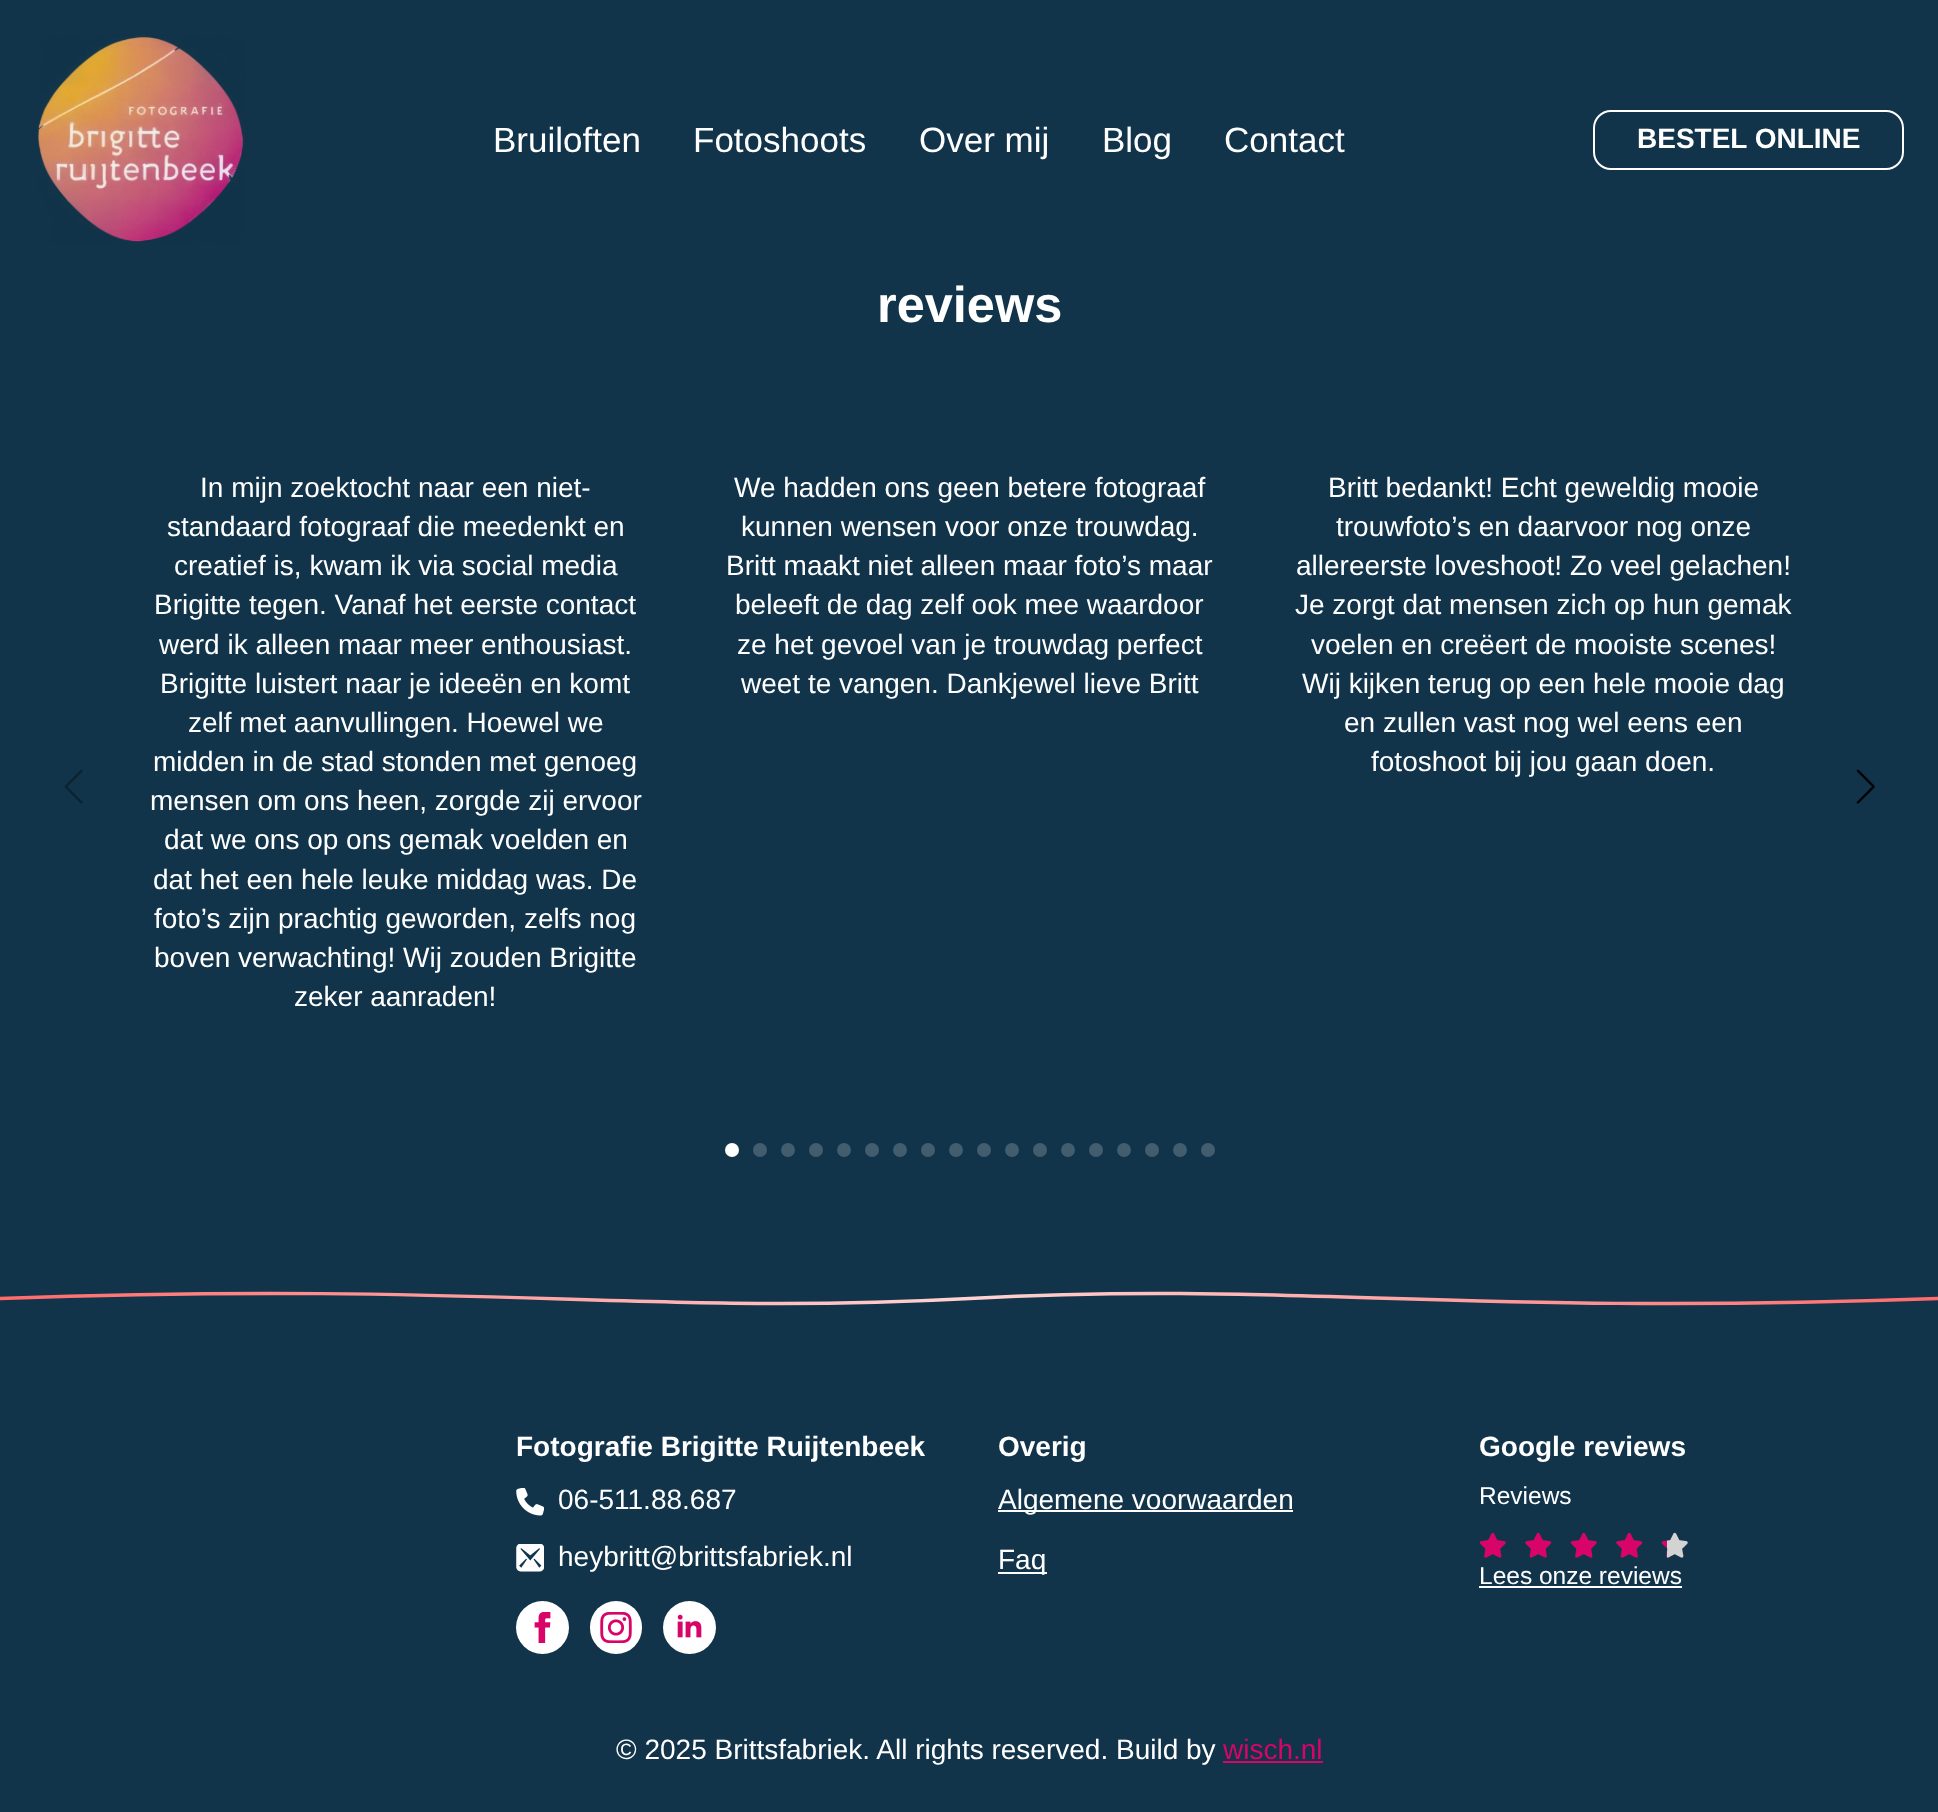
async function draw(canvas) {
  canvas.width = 1938
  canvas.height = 1812
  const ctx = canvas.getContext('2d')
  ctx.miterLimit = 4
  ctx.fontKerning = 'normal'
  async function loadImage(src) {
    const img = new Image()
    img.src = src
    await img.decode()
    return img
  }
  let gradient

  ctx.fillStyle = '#11344a'
  ctx.fillRect(0, 0, 1938, 1812)
  ctx.drawImage(await loadImage('image0.png'), 37, 35, 208, 208)
  ctx.font = '35px Liberation Sans'
  ctx.fillStyle = '#fff'
  ctx.fillText('Bruiloften', 493, 152)
  ctx.fillText('Fotoshoots', 693, 152)
  ctx.fillText('Over mij', 919, 152)
  ctx.fillText('Blog', 1102, 152)
  ctx.fillText('Contact', 1224, 152)
  ctx.beginPath()
  ctx.roundRect(1594, 111, 309, 58, 17)
  ctx.strokeStyle = '#fff'
  ctx.lineWidth = 2
  ctx.stroke()
  ctx.font = 'bold 28px Liberation Sans'
  ctx.fillText('BESTEL ONLINE', 1637, 148)
  ctx.font = 'bold 50.5px Liberation Sans'
  ctx.fillText('reviews', 877, 322)
  ctx.drawImage(await loadImage('image1.png'), 64, 769, 19, 35)
  ctx.font = '28px Liberation Sans'
  ctx.fillText('In mijn zoektocht naar een niet-', 200, 497)
  ctx.fillText('standaard fotograaf die meedenkt en', 167, 536)
  ctx.fillText('creatief is, kwam ik via social media', 174, 575)
  ctx.fillText('Brigitte tegen. Vanaf het eerste contact', 154, 614)
  ctx.fillText('werd ik alleen maar meer enthousiast.', 159, 654)
  ctx.fillText('Brigitte luistert naar je ideeën en komt', 160, 693)
  ctx.fillText('zelf met aanvullingen. Hoewel we', 188, 732)
  ctx.fillText('midden in de stad stonden met genoeg', 153, 771)
  ctx.fillText('mensen om ons heen, zorgde zij ervoor', 150, 810)
  ctx.fillText('dat we ons op ons gemak voelden en', 164, 849)
  ctx.fillText('dat het een hele leuke middag was. De', 153, 889)
  ctx.fillText('foto’s zijn prachtig geworden, zelfs nog', 154, 928)
  ctx.fillText('boven verwachting! Wij zouden Brigitte', 154, 967)
  ctx.fillText('zeker aanraden!', 294, 1006)
  ctx.fillText('We hadden ons geen betere fotograaf', 734, 497)
  ctx.fillText('kunnen wensen voor onze trouwdag.', 741, 536)
  ctx.fillText('Britt maakt niet alleen maar foto’s maar', 726, 575)
  ctx.fillText('beleeft de dag zelf ook mee waardoor', 735, 614)
  ctx.fillText('ze het gevoel van je trouwdag perfect', 737, 654)
  ctx.fillText('weet te vangen. Dankjewel lieve Britt', 741, 693)
  ctx.fillText('Britt bedankt! Echt geweldig mooie', 1328, 497)
  ctx.fillText('trouwfoto’s en daarvoor nog onze', 1336, 536)
  ctx.fillText('allereerste loveshoot! Zo veel gelachen!', 1296, 575)
  ctx.fillText('Je zorgt dat mensen zich op hun gemak', 1295, 614)
  ctx.fillText('voelen en creëert de mooiste scenes!', 1311, 654)
  ctx.fillText('Wij kijken terug op een hele mooie dag', 1302, 693)
  ctx.fillText('en zullen vast nog wel eens een', 1344, 732)
  ctx.fillText('fotoshoot bij jou gaan doen.', 1371, 771)
  ctx.drawImage(await loadImage('image2.png'), 1856, 769, 19, 35)
  ctx.beginPath()
  ctx.arc(732, 1150, 7, 0, 2 * Math.PI)
  ctx.fill()
  ctx.fillStyle = '#415d6e'
  ctx.beginPath()
  ctx.arc(760, 1150, 7, 0, 2 * Math.PI)
  ctx.fill()
  ctx.beginPath()
  ctx.arc(788, 1150, 7, 0, 2 * Math.PI)
  ctx.fill()
  ctx.beginPath()
  ctx.arc(816, 1150, 7, 0, 2 * Math.PI)
  ctx.fill()
  ctx.beginPath()
  ctx.arc(844, 1150, 7, 0, 2 * Math.PI)
  ctx.fill()
  ctx.beginPath()
  ctx.arc(872, 1150, 7, 0, 2 * Math.PI)
  ctx.fill()
  ctx.beginPath()
  ctx.arc(900, 1150, 7, 0, 2 * Math.PI)
  ctx.fill()
  ctx.beginPath()
  ctx.arc(928, 1150, 7, 0, 2 * Math.PI)
  ctx.fill()
  ctx.beginPath()
  ctx.arc(956, 1150, 7, 0, 2 * Math.PI)
  ctx.fill()
  ctx.beginPath()
  ctx.arc(984, 1150, 7, 0, 2 * Math.PI)
  ctx.fill()
  ctx.beginPath()
  ctx.arc(1012, 1150, 7, 0, 2 * Math.PI)
  ctx.fill()
  ctx.beginPath()
  ctx.arc(1040, 1150, 7, 0, 2 * Math.PI)
  ctx.fill()
  ctx.beginPath()
  ctx.arc(1068, 1150, 7, 0, 2 * Math.PI)
  ctx.fill()
  ctx.beginPath()
  ctx.arc(1096, 1150, 7, 0, 2 * Math.PI)
  ctx.fill()
  ctx.beginPath()
  ctx.arc(1124, 1150, 7, 0, 2 * Math.PI)
  ctx.fill()
  ctx.beginPath()
  ctx.arc(1152, 1150, 7, 0, 2 * Math.PI)
  ctx.fill()
  ctx.beginPath()
  ctx.arc(1180, 1150, 7, 0, 2 * Math.PI)
  ctx.fill()
  ctx.beginPath()
  ctx.arc(1208, 1150, 7, 0, 2 * Math.PI)
  ctx.fill()
  ctx.beginPath()
  ctx.moveTo(0, 1298.5)
  ctx.bezierCurveTo(484.5, 1281, 646.5, 1316, 969.5, 1298.5)
  ctx.bezierCurveTo(1292.5, 1281, 1454, 1316, 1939, 1298.5)
  gradient = ctx.createLinearGradient(0, 1293, 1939, 1293)
  gradient.addColorStop(0, '#ff6b6b')
  gradient.addColorStop(0.5, '#ffd3d3')
  gradient.addColorStop(1, '#ff6b6b')
  ctx.strokeStyle = gradient
  ctx.lineWidth = 3.4
  ctx.stroke()
  ctx.font = 'bold 28px Liberation Sans'
  ctx.fillStyle = '#fff'
  ctx.fillText('Fotografie Brigitte Ruijtenbeek', 516, 1456)
  ctx.drawImage(await loadImage('image3.png'), 516, 1488, 28, 28)
  ctx.font = '28px Liberation Sans'
  ctx.fillText('06-511.88.687', 558, 1509)
  ctx.drawImage(await loadImage('image4.png'), 516, 1544, 28, 28)
  ctx.fillText('heybritt@brittsfabriek.nl', 558, 1566)
  ctx.beginPath()
  ctx.arc(542.5, 1627.5, 26.5, 0, 2 * Math.PI)
  ctx.fill()
  ctx.drawImage(await loadImage('image5.png'), 534, 1612, 17, 31)
  ctx.beginPath()
  ctx.roundRect(590, 1601, 52, 53, 26)
  ctx.fill()
  ctx.drawImage(await loadImage('image6.png'), 600, 1612, 32, 31)
  ctx.beginPath()
  ctx.arc(689.5, 1627.5, 26.5, 0, 2 * Math.PI)
  ctx.fill()
  ctx.drawImage(await loadImage('image7.png'), 677, 1614, 25, 24)
  ctx.font = 'bold 28px Liberation Sans'
  ctx.fillText('Overig', 998, 1456)
  ctx.fillRect(998, 1510, 295, 2)
  ctx.font = '28px Liberation Sans'
  ctx.fillText('Algemene voorwaarden', 998, 1509)
  ctx.fillRect(998, 1572, 49, 2)
  ctx.fillText('Faq', 998, 1569)
  ctx.font = 'bold 28px Liberation Sans'
  ctx.fillText('Google reviews', 1479, 1456)
  ctx.font = '24.5px Liberation Sans'
  ctx.fillText('Reviews', 1479, 1504)
  ctx.drawImage(await loadImage('image8.png'), 1479, 1532, 27, 26)
  ctx.drawImage(await loadImage('image9.png'), 1525, 1532, 27, 26)
  ctx.drawImage(await loadImage('image8.png'), 1570, 1532, 27, 26)
  ctx.drawImage(await loadImage('image9.png'), 1616, 1532, 27, 26)
  ctx.drawImage(await loadImage('image10.png'), 1661, 1532, 27, 26)
  ctx.fillText('Lees onze reviews', 1479, 1584)
  ctx.fillRect(1479, 1586, 203, 2)
  ctx.font = '28px Liberation Sans'
  ctx.fillText('© 2025 Brittsfabriek. All rights reserved. Build by', 616, 1759)
  ctx.fillStyle = '#d90467'
  ctx.fillText('wisch.nl', 1223, 1759)
  ctx.fillRect(1223, 1761, 100, 2)
}

draw(document.querySelector('canvas'))
